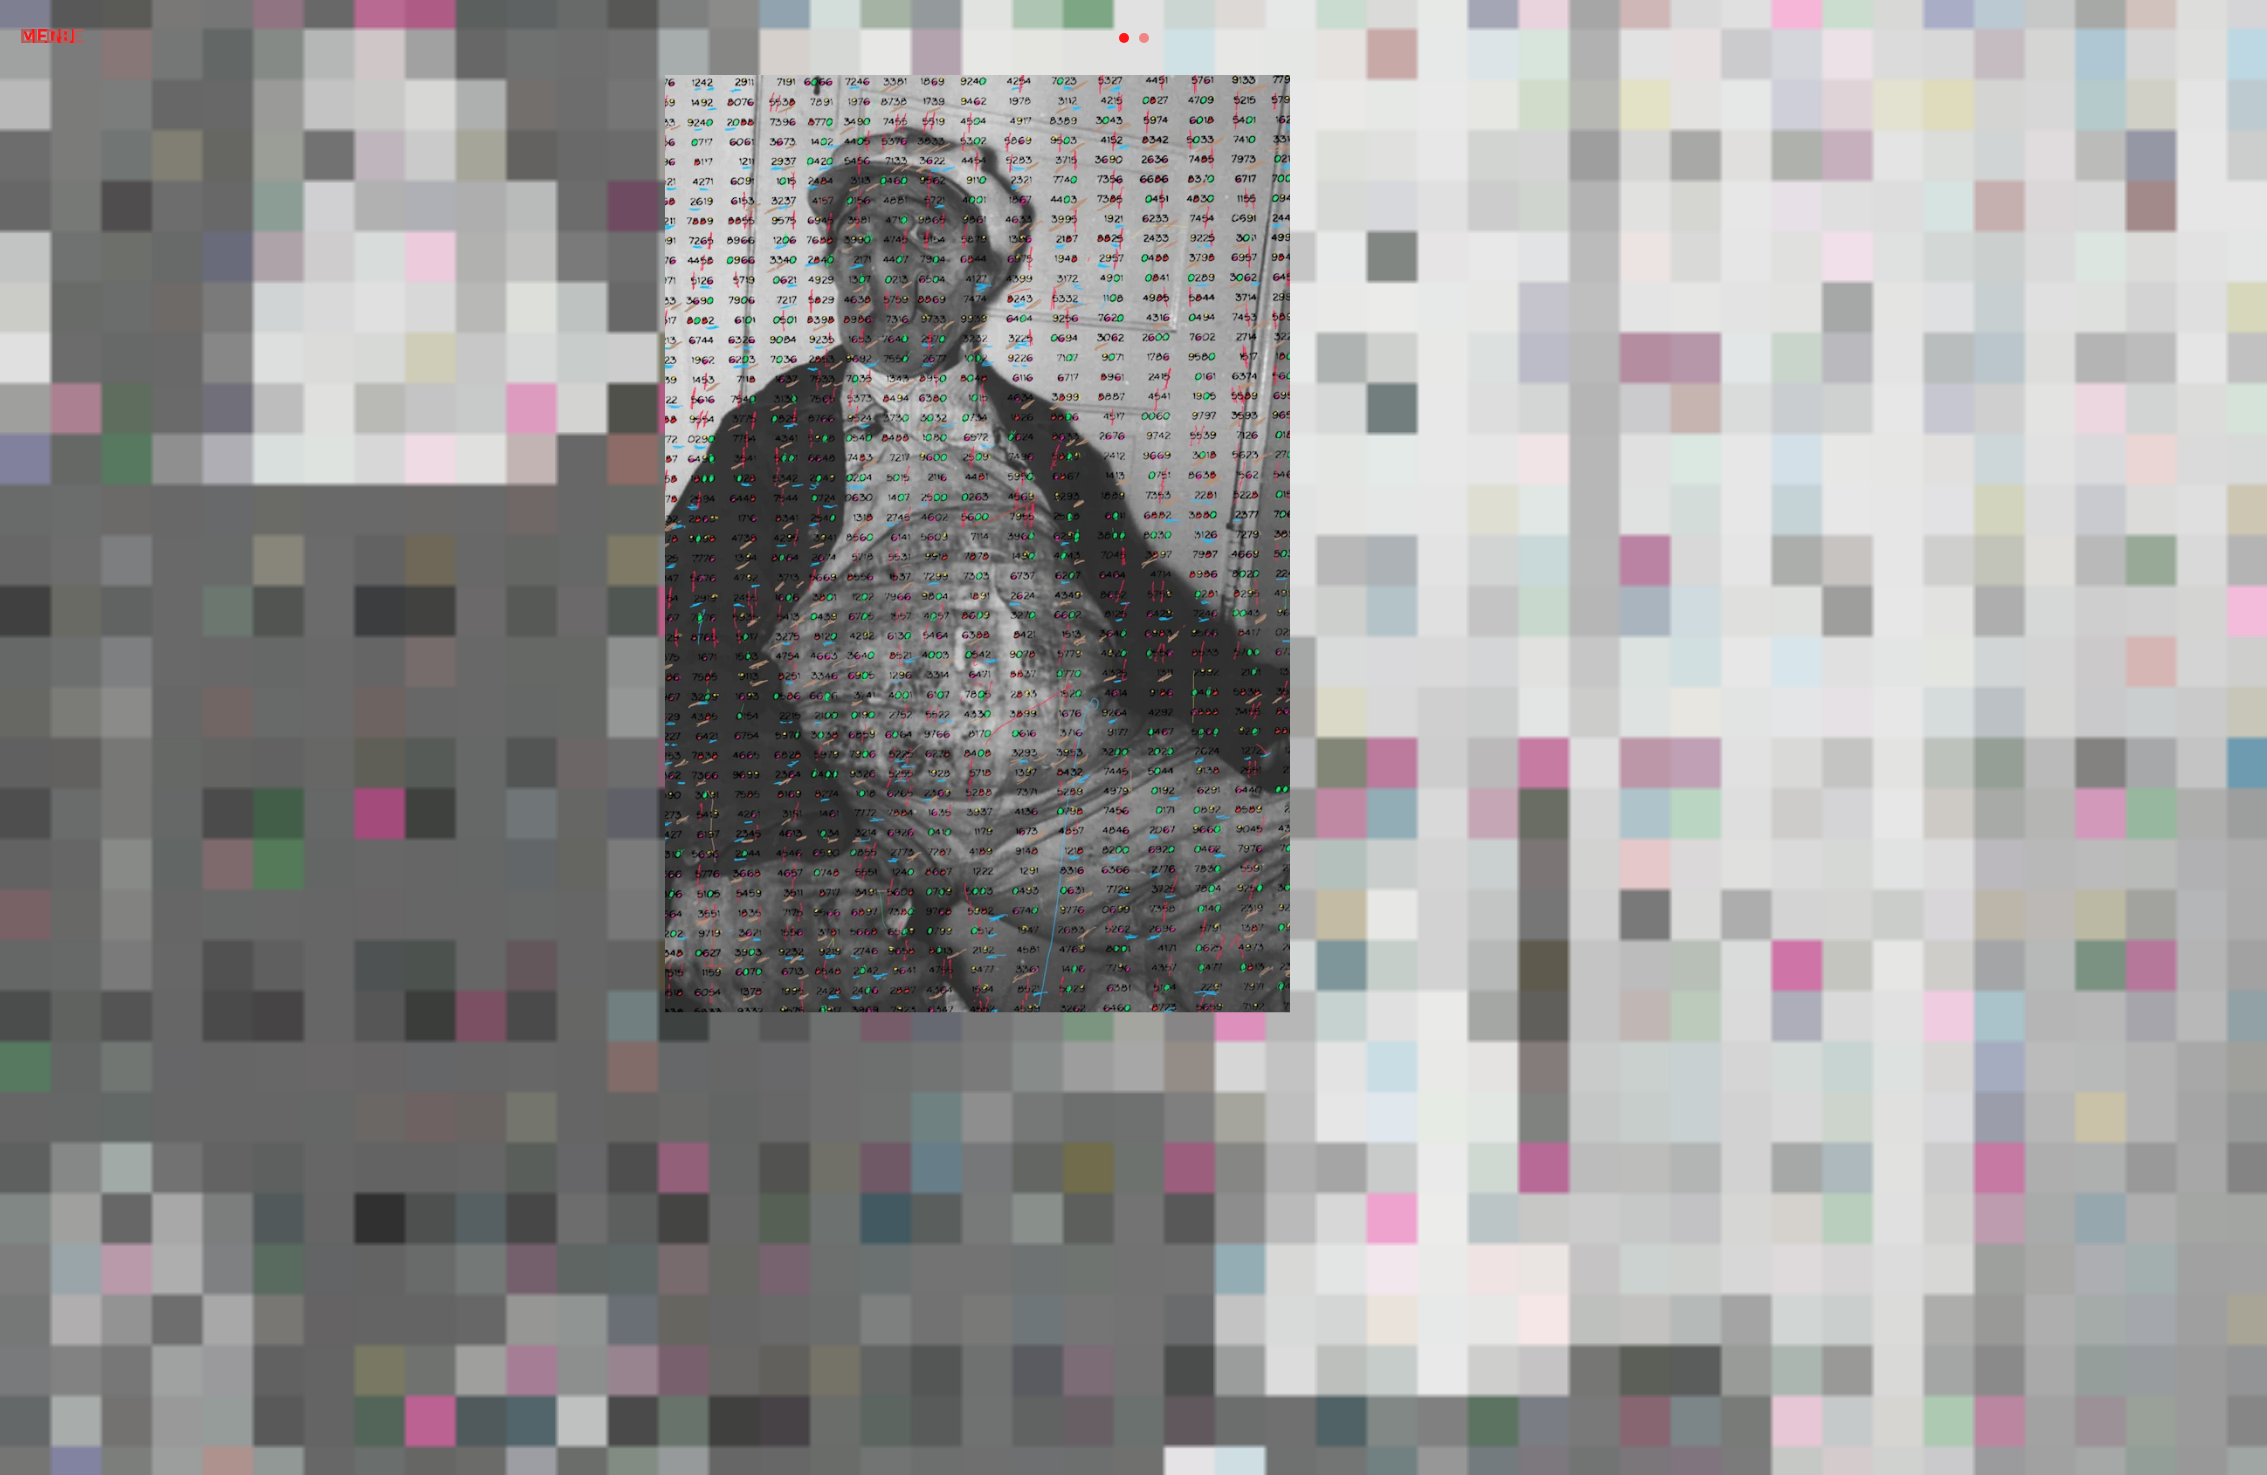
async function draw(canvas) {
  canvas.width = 2267
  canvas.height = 1475
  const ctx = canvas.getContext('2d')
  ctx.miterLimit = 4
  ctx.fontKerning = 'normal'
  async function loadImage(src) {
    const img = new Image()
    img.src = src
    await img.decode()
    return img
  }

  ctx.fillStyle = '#fff'
  ctx.fillRect(0, 0, 2267, 1475)
  ctx.drawImage(await loadImage('image0.png'), 0, 0, 2267, 1475)
  ctx.drawImage(await loadImage('image1.png'), 665, 75, 625, 938)
  ctx.font = 'bold 20px "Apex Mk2"'
  ctx.fillStyle = '#ff1515'
  ctx.fillText('menu', 20, 43)
  ctx.fillStyle = '#b25f5f'
  ctx.fillText('close', 20, 43)
  ctx.fillStyle = '#ff1515'
  ctx.beginPath()
  ctx.arc(1124, 38, 5, 0, 2 * Math.PI)
  ctx.fill()
  ctx.fillStyle = '#ef8585'
  ctx.beginPath()
  ctx.arc(1144, 38, 5, 0, 2 * Math.PI)
  ctx.fill()
}

draw(document.querySelector('canvas'))
